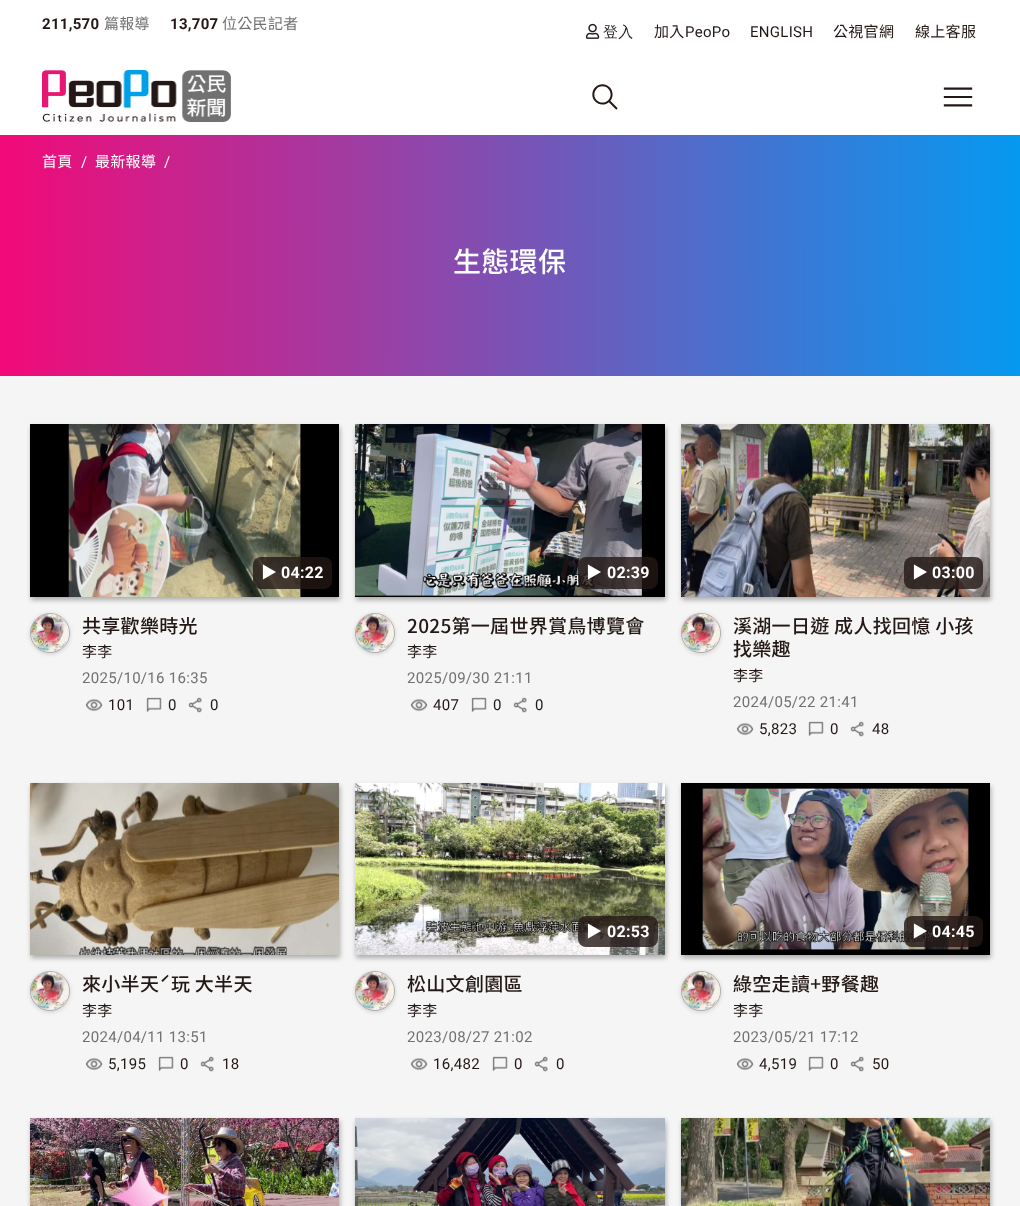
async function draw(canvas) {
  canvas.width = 1020
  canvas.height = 1206
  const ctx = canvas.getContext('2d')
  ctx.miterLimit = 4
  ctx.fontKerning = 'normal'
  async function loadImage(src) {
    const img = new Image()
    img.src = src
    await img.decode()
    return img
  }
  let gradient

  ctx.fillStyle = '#f5f5f5'
  ctx.fillRect(0, 0, 1020, 1206)
  ctx.fillStyle = '#fff'
  ctx.fillRect(0, 0, 1020, 135)
  ctx.letterSpacing = '0.3px'
  ctx.font = 'bold 15px Roboto'
  ctx.fillStyle = '#231815'
  ctx.fillText('211,570', 42, 29)
  ctx.font = '15px Noto Sans TC'
  ctx.fillStyle = '#727171'
  ctx.fillText('篇報導', 104, 29)
  ctx.font = 'bold 15px Roboto'
  ctx.fillStyle = '#231815'
  ctx.fillText('13,707', 170, 29)
  ctx.font = '15px Noto Sans TC'
  ctx.fillStyle = '#727171'
  ctx.fillText('位公民記者', 222, 29)
  ctx.drawImage(await loadImage('image0.png'), 586, 23, 14, 16)
  ctx.font = '500 15px WenQuanYi Zen Hei'
  ctx.fillStyle = '#231815'
  ctx.fillText('登入', 603, 37)
  ctx.font = '15px Noto Sans TC'
  ctx.fillText('加入', 654, 37)
  ctx.font = '15px Roboto'
  ctx.fillText('PeoPo', 685, 37)
  ctx.fillText('ENGLISH', 750, 37)
  ctx.font = '15px Noto Sans TC'
  ctx.fillText('公視官網', 833, 37)
  ctx.fillText('線上客服', 915, 37)
  ctx.drawImage(await loadImage('image1.png'), 42, 70, 189, 52)
  ctx.drawImage(await loadImage('image2.png'), 592, 84, 26, 26)
  ctx.drawImage(await loadImage('image3.png'), 943, 87, 30, 20)
  gradient = ctx.createLinearGradient(1020, 255, 0, 256)
  gradient.addColorStop(0, '#0599f0')
  gradient.addColorStop(1, '#f20a78')
  ctx.fillStyle = gradient
  ctx.fillRect(0, 135, 1020, 241)
  ctx.fillStyle = '#fff'
  ctx.fillText('首頁', 42, 167)
  ctx.font = '15px Roboto'
  ctx.fillText('/', 81, 167)
  ctx.font = '15px Noto Sans TC'
  ctx.fillText('最新報導', 95, 167)
  ctx.font = '15px Roboto'
  ctx.fillText('/', 164, 167)
  ctx.font = '500 28px Noto Sans TC'
  ctx.fillText('生態環保', 453, 272)
  ctx.fillStyle = '#0000004d'
  ctx.filter = 'blur(2.5px)'
  ctx.beginPath()
  ctx.rect(31, 427, 309, 173)
  ctx.fill()
  ctx.filter = 'none'
  ctx.drawImage(await loadImage('image4.png'), 30, 424, 309, 173)
  ctx.fillStyle = '#231815cc'
  ctx.beginPath()
  ctx.roundRect(253, 557, 79, 32, 8)
  ctx.fill()
  ctx.font = 'bold 16px Noto Sans TC'
  ctx.fillStyle = '#fff'
  ctx.fillText('▶︎', 261, 578)
  ctx.font = 'bold 16px Roboto'
  ctx.fillText('04:22', 281, 578)
  ctx.fillStyle = '#0c0c0d1a'
  ctx.filter = 'blur(2px)'
  ctx.beginPath()
  ctx.roundRect(30, 614, 40, 40, 20)
  ctx.fill()
  ctx.filter = 'none'
  ctx.fillStyle = '#0c0c0d0d'
  ctx.filter = 'blur(2px)'
  ctx.beginPath()
  ctx.roundRect(30, 614, 40, 40, 20)
  ctx.fill()
  ctx.filter = 'none'
  ctx.beginPath()
  ctx.arc(50, 633, 19.5, 0, 2 * Math.PI)
  ctx.strokeStyle = '#23181540'
  ctx.stroke()
  ctx.drawImage(await loadImage('image5.png'), 31, 614, 38, 38)
  ctx.font = '500 19px Noto Sans TC'
  ctx.fillStyle = '#231815'
  ctx.fillText('共享歡樂時光', 82, 633)
  ctx.font = '15px Noto Sans TC'
  ctx.fillText('李李', 82, 657)
  ctx.font = '15px Roboto'
  ctx.fillStyle = '#727171'
  ctx.fillText('2025/10/16 16:35', 82, 683)
  ctx.drawImage(await loadImage('image6.png'), 85, 698, 18, 14)
  ctx.fillStyle = '#231815'
  ctx.fillText('101', 108, 710)
  ctx.drawImage(await loadImage('image7.png'), 146, 697, 16, 16)
  ctx.fillText('0', 168, 710)
  ctx.drawImage(await loadImage('image8.png'), 188, 697, 14, 16)
  ctx.fillText('0', 210, 710)
  ctx.fillStyle = '#0000004d'
  ctx.filter = 'blur(2.5px)'
  ctx.beginPath()
  ctx.rect(356, 427, 310, 173)
  ctx.fill()
  ctx.filter = 'none'
  ctx.drawImage(await loadImage('image9.png'), 355, 424, 310, 173)
  ctx.fillStyle = '#231815cc'
  ctx.beginPath()
  ctx.roundRect(578, 557, 80, 32, 8)
  ctx.fill()
  ctx.font = 'bold 16px Noto Sans TC'
  ctx.fillStyle = '#fff'
  ctx.fillText('▶︎', 586, 578)
  ctx.font = 'bold 16px Roboto'
  ctx.fillText('02:39', 607, 578)
  ctx.fillStyle = '#0c0c0d1a'
  ctx.filter = 'blur(2px)'
  ctx.beginPath()
  ctx.roundRect(355, 614, 40, 40, 20)
  ctx.fill()
  ctx.filter = 'none'
  ctx.fillStyle = '#0c0c0d0d'
  ctx.filter = 'blur(2px)'
  ctx.beginPath()
  ctx.roundRect(355, 614, 40, 40, 20)
  ctx.fill()
  ctx.filter = 'none'
  ctx.beginPath()
  ctx.arc(375, 633, 19.5, 0, 2 * Math.PI)
  ctx.stroke()
  ctx.drawImage(await loadImage('image10.png'), 356, 614, 38, 38)
  ctx.font = '500 19px Noto Sans TC'
  ctx.fillStyle = '#231815'
  ctx.fillText('2025第一屆世界賞鳥博覽會', 407, 633)
  ctx.font = '15px Noto Sans TC'
  ctx.fillText('李李', 407, 657)
  ctx.font = '15px Roboto'
  ctx.fillStyle = '#727171'
  ctx.fillText('2025/09/30 21:11', 407, 683)
  ctx.drawImage(await loadImage('image6.png'), 410, 698, 18, 14)
  ctx.fillStyle = '#231815'
  ctx.fillText('407', 433, 710)
  ctx.drawImage(await loadImage('image7.png'), 471, 697, 16, 16)
  ctx.fillText('0', 493, 710)
  ctx.drawImage(await loadImage('image8.png'), 513, 697, 14, 16)
  ctx.fillText('0', 535, 710)
  ctx.fillStyle = '#0000004d'
  ctx.filter = 'blur(2.5px)'
  ctx.beginPath()
  ctx.rect(682, 427, 309, 173)
  ctx.fill()
  ctx.filter = 'none'
  ctx.drawImage(await loadImage('image11.png'), 681, 424, 309, 173)
  ctx.fillStyle = '#231815cc'
  ctx.beginPath()
  ctx.roundRect(904, 557, 79, 32, 8)
  ctx.fill()
  ctx.font = 'bold 16px Noto Sans TC'
  ctx.fillStyle = '#fff'
  ctx.fillText('▶︎', 912, 578)
  ctx.font = 'bold 16px Roboto'
  ctx.fillText('03:00', 932, 578)
  ctx.fillStyle = '#0c0c0d1a'
  ctx.filter = 'blur(2px)'
  ctx.beginPath()
  ctx.roundRect(681, 614, 40, 40, 20)
  ctx.fill()
  ctx.filter = 'none'
  ctx.fillStyle = '#0c0c0d0d'
  ctx.filter = 'blur(2px)'
  ctx.beginPath()
  ctx.roundRect(681, 614, 40, 40, 20)
  ctx.fill()
  ctx.filter = 'none'
  ctx.beginPath()
  ctx.arc(701, 633, 19.5, 0, 2 * Math.PI)
  ctx.stroke()
  ctx.drawImage(await loadImage('image12.png'), 682, 614, 38, 38)
  ctx.font = '500 19px Noto Sans TC'
  ctx.fillStyle = '#231815'
  ctx.fillText('溪湖一日遊 成人找回憶 小孩', 733, 633)
  ctx.fillText('找樂趣', 733, 656)
  ctx.font = '15px Noto Sans TC'
  ctx.fillText('李李', 733, 681)
  ctx.font = '15px Roboto'
  ctx.fillStyle = '#727171'
  ctx.fillText('2024/05/22 21:41', 733, 707)
  ctx.drawImage(await loadImage('image6.png'), 736, 722, 18, 14)
  ctx.fillStyle = '#231815'
  ctx.fillText('5,823', 759, 734)
  ctx.drawImage(await loadImage('image13.png'), 808, 721, 16, 16)
  ctx.fillText('0', 830, 734)
  ctx.drawImage(await loadImage('image8.png'), 850, 721, 14, 16)
  ctx.fillText('48', 872, 734)
  ctx.fillStyle = '#0000004d'
  ctx.filter = 'blur(2.5px)'
  ctx.beginPath()
  ctx.rect(31, 786, 309, 172)
  ctx.fill()
  ctx.filter = 'none'
  ctx.drawImage(await loadImage('image14.png'), 30, 783, 309, 172)
  ctx.fillStyle = '#0c0c0d1a'
  ctx.filter = 'blur(2px)'
  ctx.beginPath()
  ctx.roundRect(30, 972, 40, 40, 20)
  ctx.fill()
  ctx.filter = 'none'
  ctx.fillStyle = '#0c0c0d0d'
  ctx.filter = 'blur(2px)'
  ctx.beginPath()
  ctx.roundRect(30, 972, 40, 40, 20)
  ctx.fill()
  ctx.filter = 'none'
  ctx.beginPath()
  ctx.arc(50, 991, 19.5, 0, 2 * Math.PI)
  ctx.stroke()
  ctx.drawImage(await loadImage('image5.png'), 31, 972, 38, 38)
  ctx.font = '500 19px Noto Sans TC'
  ctx.fillStyle = '#231815'
  ctx.fillText('來小半天ˊ玩 大半天', 82, 991)
  ctx.font = '15px Noto Sans TC'
  ctx.fillText('李李', 82, 1016)
  ctx.font = '15px Roboto'
  ctx.fillStyle = '#727171'
  ctx.fillText('2024/04/11 13:51', 82, 1042)
  ctx.drawImage(await loadImage('image6.png'), 85, 1057, 18, 14)
  ctx.fillStyle = '#231815'
  ctx.fillText('5,195', 108, 1069)
  ctx.drawImage(await loadImage('image7.png'), 158, 1056, 16, 16)
  ctx.fillText('0', 180, 1069)
  ctx.drawImage(await loadImage('image8.png'), 200, 1056, 14, 16)
  ctx.fillText('18', 222, 1069)
  ctx.fillStyle = '#0000004d'
  ctx.filter = 'blur(2.5px)'
  ctx.beginPath()
  ctx.rect(356, 786, 310, 172)
  ctx.fill()
  ctx.filter = 'none'
  ctx.drawImage(await loadImage('image15.png'), 355, 783, 310, 172)
  ctx.fillStyle = '#231815cc'
  ctx.beginPath()
  ctx.roundRect(578, 916, 80, 31, 8)
  ctx.fill()
  ctx.font = 'bold 16px Noto Sans TC'
  ctx.fillStyle = '#fff'
  ctx.fillText('▶︎', 586, 937)
  ctx.font = 'bold 16px Roboto'
  ctx.fillText('02:53', 607, 937)
  ctx.fillStyle = '#0c0c0d1a'
  ctx.filter = 'blur(2px)'
  ctx.beginPath()
  ctx.roundRect(355, 972, 40, 40, 20)
  ctx.fill()
  ctx.filter = 'none'
  ctx.fillStyle = '#0c0c0d0d'
  ctx.filter = 'blur(2px)'
  ctx.beginPath()
  ctx.roundRect(355, 972, 40, 40, 20)
  ctx.fill()
  ctx.filter = 'none'
  ctx.beginPath()
  ctx.arc(375, 991, 19.5, 0, 2 * Math.PI)
  ctx.stroke()
  ctx.drawImage(await loadImage('image10.png'), 356, 972, 38, 38)
  ctx.font = '500 19px Noto Sans TC'
  ctx.fillStyle = '#231815'
  ctx.fillText('松山文創園區', 407, 991)
  ctx.font = '15px Noto Sans TC'
  ctx.fillText('李李', 407, 1016)
  ctx.font = '15px Roboto'
  ctx.fillStyle = '#727171'
  ctx.fillText('2023/08/27 21:02', 407, 1042)
  ctx.drawImage(await loadImage('image6.png'), 410, 1057, 18, 14)
  ctx.fillStyle = '#231815'
  ctx.fillText('16,482', 433, 1069)
  ctx.drawImage(await loadImage('image7.png'), 492, 1056, 16, 16)
  ctx.fillText('0', 514, 1069)
  ctx.drawImage(await loadImage('image8.png'), 534, 1056, 14, 16)
  ctx.fillText('0', 556, 1069)
  ctx.fillStyle = '#0000004d'
  ctx.filter = 'blur(2.5px)'
  ctx.beginPath()
  ctx.rect(682, 786, 309, 172)
  ctx.fill()
  ctx.filter = 'none'
  ctx.drawImage(await loadImage('image16.png'), 681, 783, 309, 172)
  ctx.fillStyle = '#231815cc'
  ctx.beginPath()
  ctx.roundRect(904, 916, 79, 31, 8)
  ctx.fill()
  ctx.font = 'bold 16px Noto Sans TC'
  ctx.fillStyle = '#fff'
  ctx.fillText('▶︎', 912, 937)
  ctx.font = 'bold 16px Roboto'
  ctx.fillText('04:45', 932, 937)
  ctx.fillStyle = '#0c0c0d1a'
  ctx.filter = 'blur(2px)'
  ctx.beginPath()
  ctx.roundRect(681, 972, 40, 40, 20)
  ctx.fill()
  ctx.filter = 'none'
  ctx.fillStyle = '#0c0c0d0d'
  ctx.filter = 'blur(2px)'
  ctx.beginPath()
  ctx.roundRect(681, 972, 40, 40, 20)
  ctx.fill()
  ctx.filter = 'none'
  ctx.beginPath()
  ctx.arc(701, 991, 19.5, 0, 2 * Math.PI)
  ctx.stroke()
  ctx.drawImage(await loadImage('image12.png'), 682, 972, 38, 38)
  ctx.font = '500 19px Noto Sans TC'
  ctx.fillStyle = '#231815'
  ctx.fillText('綠空走讀+野餐趣', 733, 991)
  ctx.font = '15px Noto Sans TC'
  ctx.fillText('李李', 733, 1016)
  ctx.font = '15px Roboto'
  ctx.fillStyle = '#727171'
  ctx.fillText('2023/05/21 17:12', 733, 1042)
  ctx.drawImage(await loadImage('image6.png'), 736, 1057, 18, 14)
  ctx.fillStyle = '#231815'
  ctx.fillText('4,519', 759, 1069)
  ctx.drawImage(await loadImage('image13.png'), 808, 1056, 16, 16)
  ctx.fillText('0', 830, 1069)
  ctx.drawImage(await loadImage('image8.png'), 850, 1056, 14, 16)
  ctx.fillText('50', 872, 1069)
  ctx.fillStyle = '#0000004d'
  ctx.filter = 'blur(2.5px)'
  ctx.beginPath()
  ctx.rect(31, 1121, 309, 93)
  ctx.fill()
  ctx.filter = 'none'
  ctx.drawImage(await loadImage('image17.png'), 30, 1118, 309, 88)
  ctx.filter = 'blur(2.5px)'
  ctx.beginPath()
  ctx.rect(356, 1121, 310, 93)
  ctx.fill()
  ctx.filter = 'none'
  ctx.drawImage(await loadImage('image18.png'), 355, 1118, 310, 88)
  ctx.filter = 'blur(2.5px)'
  ctx.beginPath()
  ctx.rect(682, 1121, 309, 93)
  ctx.fill()
  ctx.filter = 'none'
  ctx.drawImage(await loadImage('image19.png'), 681, 1118, 309, 88)
}

draw(document.querySelector('canvas'))
